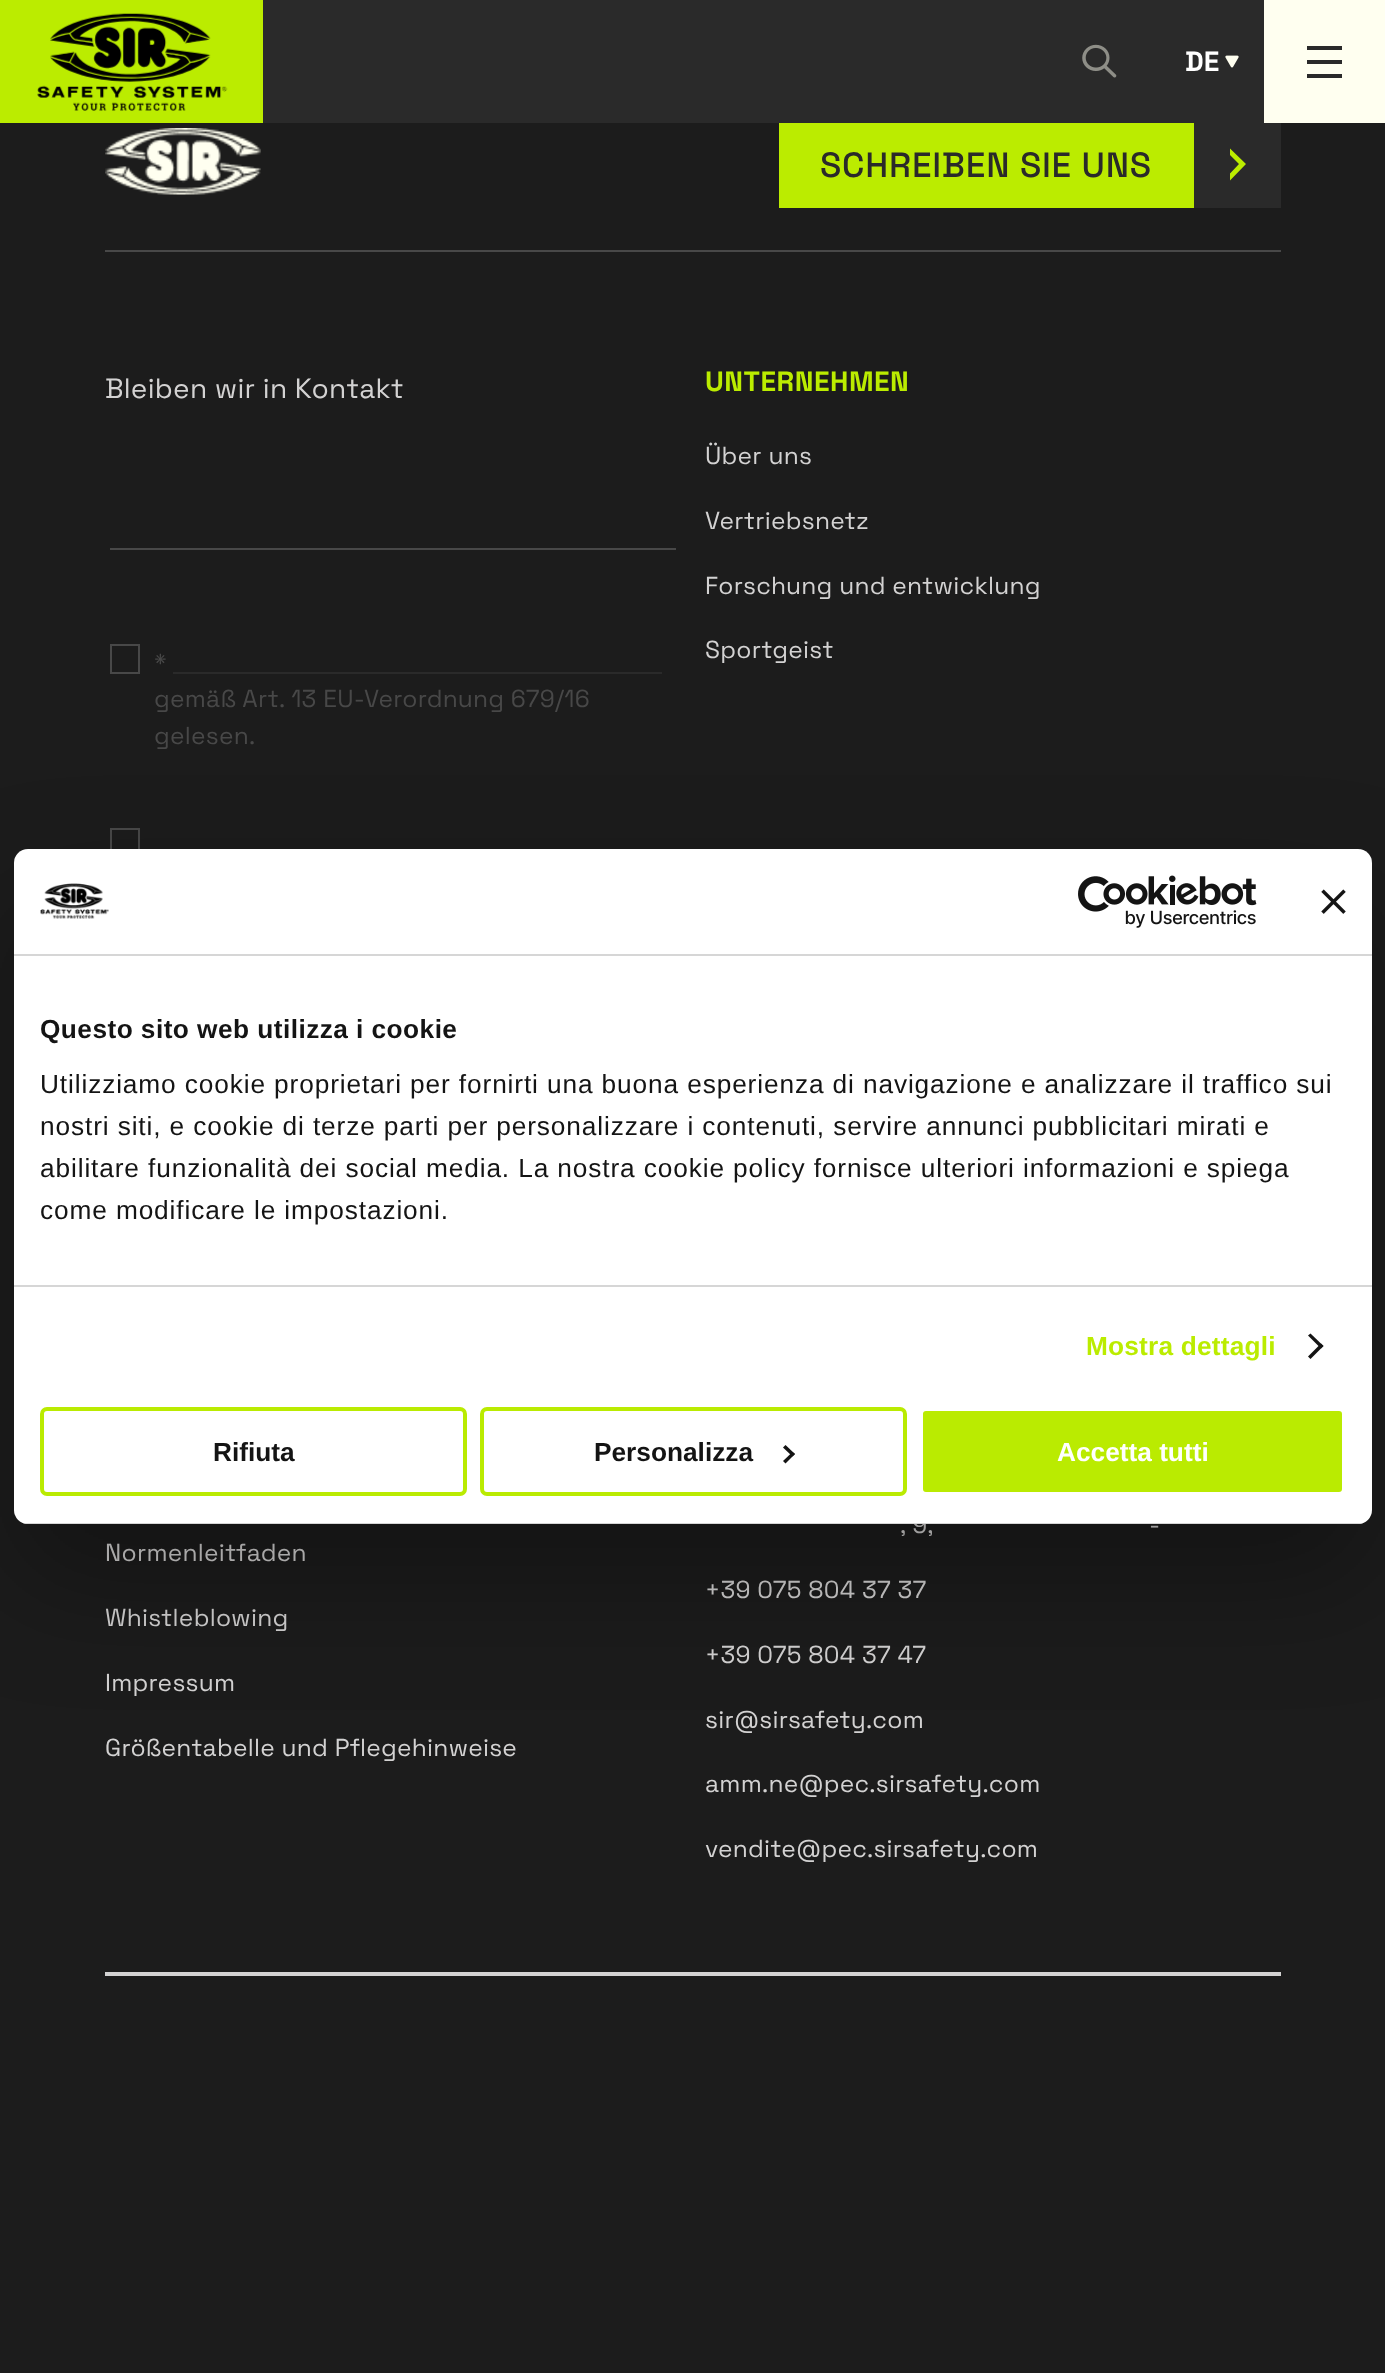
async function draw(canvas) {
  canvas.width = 1385
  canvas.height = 2373
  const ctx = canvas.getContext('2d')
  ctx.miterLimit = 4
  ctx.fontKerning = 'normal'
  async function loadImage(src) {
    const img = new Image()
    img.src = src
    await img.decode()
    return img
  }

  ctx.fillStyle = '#1c1c1c'
  ctx.fillRect(0, 0, 1385, 2373)
  ctx.fillStyle = '#2a2a2a'
  ctx.fillRect(263, 0, 1001, 123)
  ctx.fillStyle = '#bbec00'
  ctx.fillRect(0, 0, 263, 123)
  ctx.drawImage(await loadImage('image0.png'), 37, 13, 191, 98)
  ctx.drawImage(await loadImage('image1.png'), 1082, 44, 35, 34)
  ctx.font = 'bold 28px Space Grotesk'
  ctx.fillStyle = '#fff'
  ctx.fillText('DE', 1185, 71)
  ctx.drawImage(await loadImage('image2.png'), 1225, 55, 14, 13)
  ctx.fillStyle = '#fffff0'
  ctx.fillRect(1264, 0, 121, 123)
  ctx.fillStyle = '#2a2a2a'
  ctx.fillRect(1307, 46, 35, 4)
  ctx.fillRect(1307, 60, 35, 4)
  ctx.fillRect(1307, 74, 35, 4)
  ctx.fillStyle = '#484848'
  ctx.fillRect(105, 250, 1176, 2)
  ctx.drawImage(await loadImage('image3.png'), 105, 128, 156, 67)
  ctx.fillStyle = '#bbec00'
  ctx.fillRect(779, 123, 415, 85)
  ctx.letterSpacing = '0.75px'
  ctx.font = '500 35px Space Grotesk'
  ctx.fillStyle = '#2a2a2a'
  ctx.fillText('SCHREIBEN SIE UNS', 820, 177)
  ctx.fillRect(1194, 123, 87, 85)
  ctx.fillStyle = '#bbec00'
  ctx.beginPath()
  ctx.moveTo(1239, 164)
  ctx.lineTo(1230, 155)
  ctx.lineTo(1230, 148.5)
  ctx.lineTo(1246, 164)
  ctx.lineTo(1230, 180.5)
  ctx.lineTo(1230, 173.5)
  ctx.closePath()
  ctx.fill('evenodd')
  ctx.letterSpacing = '0.25px'
  ctx.font = '28px Space Grotesk'
  ctx.fillStyle = '#d3d2d2'
  ctx.fillText('Bleiben wir in Kontakt', 105, 398)
  ctx.fillStyle = '#484848'
  ctx.fillRect(110, 548, 566, 2)
  ctx.strokeStyle = '#484848'
  ctx.lineWidth = 2
  ctx.strokeRect(111, 645, 28, 28)
  ctx.font = '24.5px Space Grotesk'
  ctx.fillText('*', 154, 671)
  ctx.fillStyle = '#2a2a2a'
  ctx.fillRect(173, 672, 489, 2)
  ctx.fillStyle = '#484848'
  ctx.fillText('gemäß Art. 13 EU-Verordnung 679/16', 154, 707)
  ctx.fillText('gelesen.', 154, 744)
  ctx.strokeRect(111, 829, 28, 28)
  ctx.letterSpacing = '0.5px'
  ctx.font = 'bold 28px Space Grotesk'
  ctx.fillStyle = '#bbec00'
  ctx.fillText('UNTERNEHMEN', 705, 391)
  ctx.letterSpacing = '0.25px'
  ctx.font = '24.5px Space Grotesk'
  ctx.fillStyle = '#d3d2d2'
  ctx.fillText('Über uns', 705, 464)
  ctx.fillText('Vertriebsnetz', 705, 529)
  ctx.fillText('Forschung und entwicklung', 705, 594)
  ctx.fillText('Sportgeist', 705, 658)
  ctx.fillText('Normenleitfaden', 105, 1561)
  ctx.fillText('Whistleblowing', 105, 1626)
  ctx.fillText('Impressum', 105, 1691)
  ctx.fillText('Größentabelle und Pflegehinweise', 105, 1756)
  ctx.fillText(', 9,', 900, 1533)
  ctx.fillText('-', 1149, 1533)
  ctx.fillText('+39 075 804 37 37', 705, 1598)
  ctx.fillText('+39 075 804 37 47', 705, 1663)
  ctx.fillText('sir@sirsafety.com', 705, 1728)
  ctx.fillText('amm.ne@pec.sirsafety.com', 705, 1792)
  ctx.fillText('vendite@pec.sirsafety.com', 705, 1857)
  ctx.fillRect(105, 1972, 1176, 4)
  ctx.fillStyle = '#0000004d'
  ctx.filter = 'blur(59.5px)'
  ctx.beginPath()
  ctx.roundRect(14, 905, 1358, 675, 14)
  ctx.fill()
  ctx.filter = 'none'
  ctx.fillStyle = '#fff'
  ctx.beginPath()
  ctx.roundRect(14, 849, 1358, 675, 14)
  ctx.fill()
  ctx.fillStyle = '#d6d6d6'
  ctx.fillRect(14, 954, 1358, 2)
  ctx.drawImage(await loadImage('image4.png'), 40, 883, 69, 36)
  ctx.drawImage(await loadImage('image5.png'), 1078, 875, 179, 53)
  ctx.drawImage(await loadImage('image6.png'), 1321, 889, 25, 25)
  ctx.fillRect(14, 1285, 1358, 2)
  ctx.letterSpacing = '0.45px'
  ctx.font = 'bold 26.25px Liberation Sans'
  ctx.fillStyle = '#141414'
  ctx.fillText('Questo sito web utilizza i cookie', 40, 1038)
  ctx.letterSpacing = '0.88px'
  ctx.font = '26.25px Liberation Sans'
  ctx.fillText('Utilizziamo cookie proprietari per fornirti una buona esperienza di navigazione e analizzare il traffico sui', 40, 1093)
  ctx.fillText('nostri siti, e cookie di terze parti per personalizzare i contenuti, servire annunci pubblicitari mirati e', 40, 1135)
  ctx.fillText('abilitare funzionalità dei social media. La nostra cookie policy fornisce ulteriori informazioni e spiega', 40, 1177)
  ctx.fillText('come modificare le impostazioni.', 40, 1219)
  ctx.letterSpacing = '0.2px'
  ctx.font = 'bold 26.25px Liberation Sans'
  ctx.fillStyle = '#bbec00'
  ctx.fillText('Mostra dettagli', 1086, 1355)
  ctx.fillStyle = '#141414'
  ctx.beginPath()
  ctx.moveTo(1310.5, 1333.5)
  ctx.lineTo(1323.5, 1346)
  ctx.lineTo(1321, 1348.5)
  ctx.lineTo(1308, 1335.5)
  ctx.closePath()
  ctx.fill()
  ctx.beginPath()
  ctx.moveTo(1321, 1343.5)
  ctx.lineTo(1323.5, 1346)
  ctx.lineTo(1310.5, 1359)
  ctx.lineTo(1308, 1356.5)
  ctx.closePath()
  ctx.fill()
  ctx.save()
  ctx.beginPath()
  ctx.roundRect(14, 849, 1358, 675, 14)
  ctx.clip()
  ctx.fillStyle = '#d6d6d6'
  ctx.fillRect(23, 1523, 1340, 1)
  ctx.restore()
  ctx.beginPath()
  ctx.roundRect(42, 1409, 423, 85, 5)
  ctx.strokeStyle = '#baeb01'
  ctx.lineWidth = 4
  ctx.stroke()
  ctx.letterSpacing = '0px'
  ctx.fillText('Rifiuta', 213, 1461)
  ctx.beginPath()
  ctx.roundRect(482, 1409, 423, 85, 5)
  ctx.stroke()
  ctx.fillText('Personalizza', 594, 1461)
  ctx.beginPath()
  ctx.moveTo(785.5, 1445)
  ctx.lineTo(795, 1454)
  ctx.lineTo(792.5, 1456.5)
  ctx.lineTo(783, 1447.5)
  ctx.closePath()
  ctx.fill()
  ctx.beginPath()
  ctx.moveTo(792.5, 1452)
  ctx.lineTo(795, 1454)
  ctx.lineTo(785.5, 1463.5)
  ctx.lineTo(783, 1461)
  ctx.closePath()
  ctx.fill()
  ctx.fillStyle = '#baeb01'
  ctx.beginPath()
  ctx.roundRect(921, 1409, 423, 85, 5)
  ctx.fill()
  ctx.strokeStyle = '#fff'
  ctx.stroke()
  ctx.fillStyle = '#fff'
  ctx.fillText('Accetta tutti', 1057, 1461)
}

draw(document.querySelector('canvas'))
